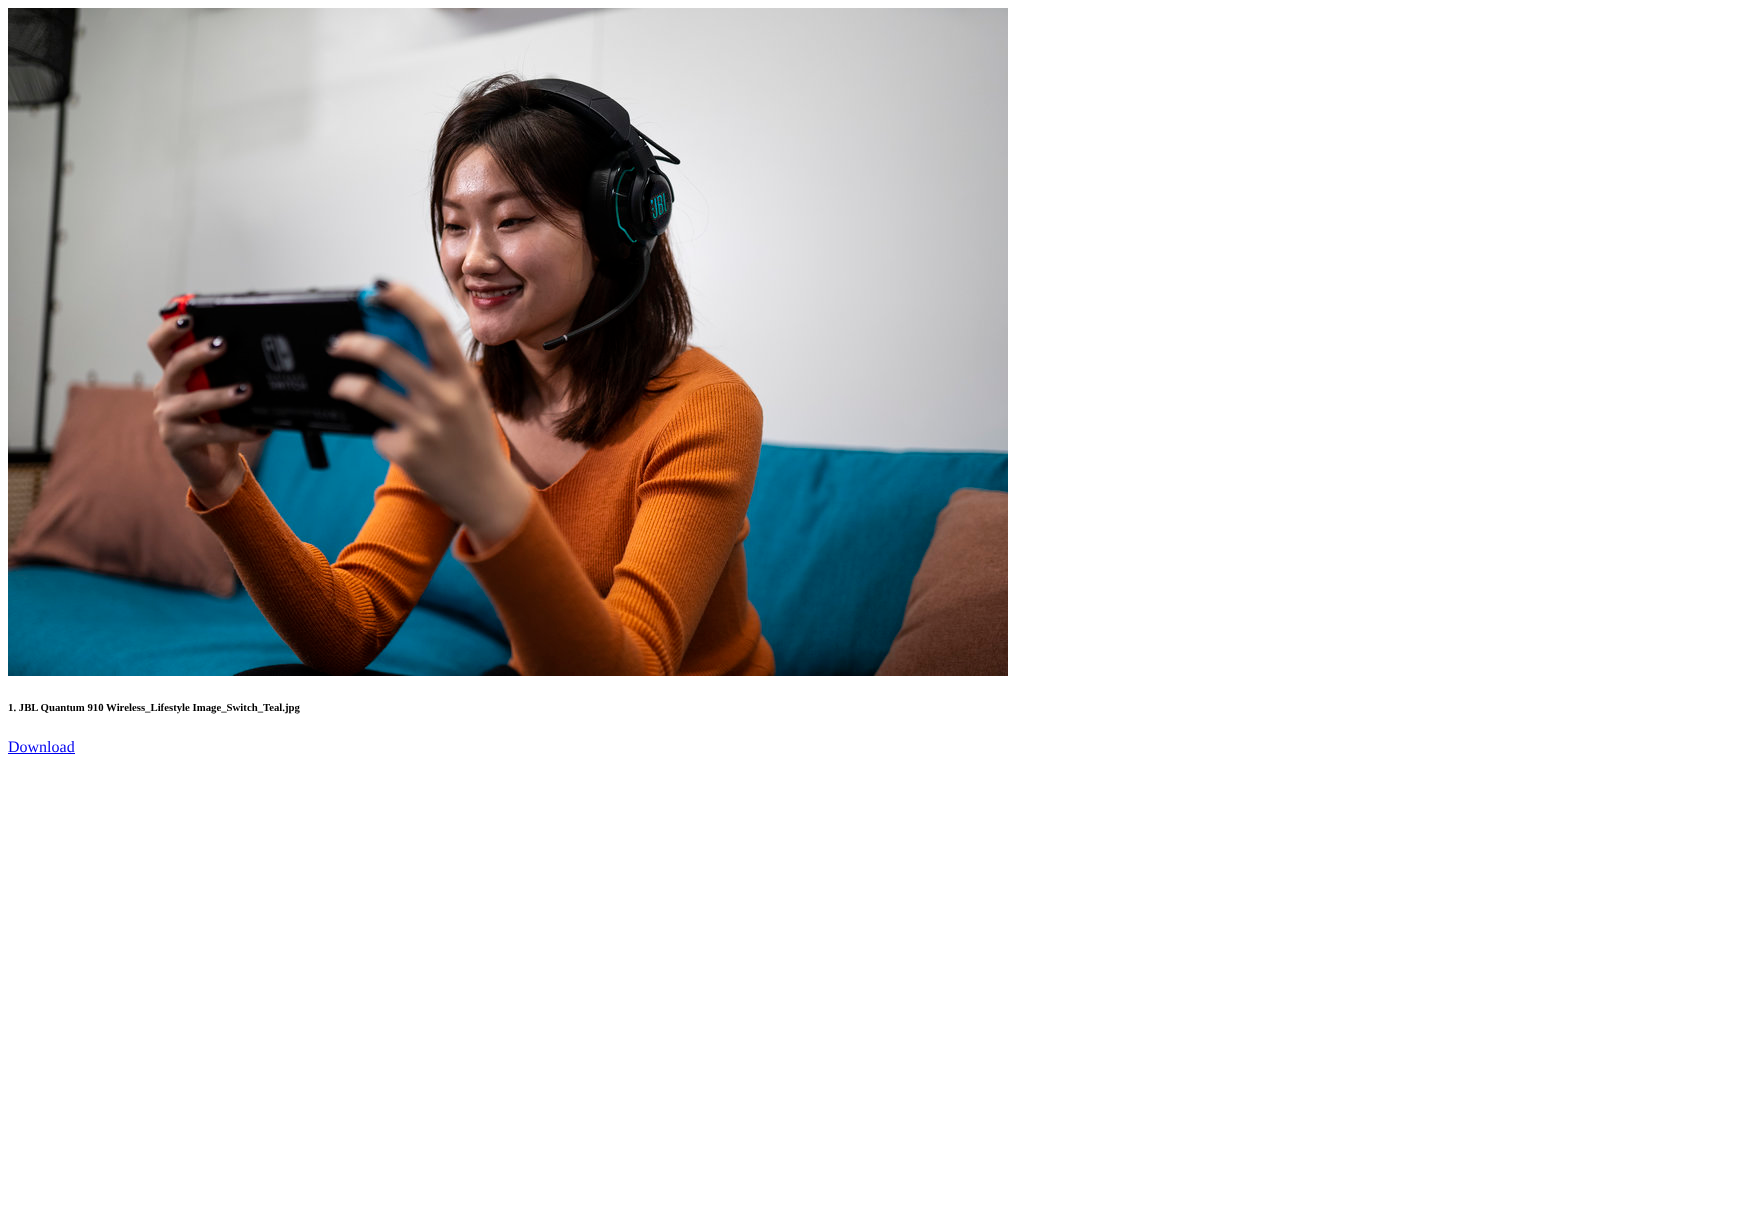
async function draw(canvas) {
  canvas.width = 1760
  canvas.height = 1226
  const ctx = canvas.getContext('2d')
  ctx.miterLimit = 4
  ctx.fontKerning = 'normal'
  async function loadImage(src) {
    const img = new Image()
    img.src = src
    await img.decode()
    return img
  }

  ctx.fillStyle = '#fff'
  ctx.fillRect(0, 0, 1760, 1226)
  ctx.drawImage(await loadImage('image0.png'), 8, 8, 1000, 668)
  ctx.font = 'bold 10.75px Liberation Serif'
  ctx.fillStyle = '#000'
  ctx.fillText('1. JBL Quantum 910 Wireless_Lifestyle Image_Switch_Teal.jpg', 8, 711)
  ctx.font = '16px Liberation Serif'
  ctx.fillStyle = '#00e'
  ctx.fillText('Download', 8, 752)
  ctx.fillRect(8, 753, 67, 1)
}

draw(document.querySelector('canvas'))
